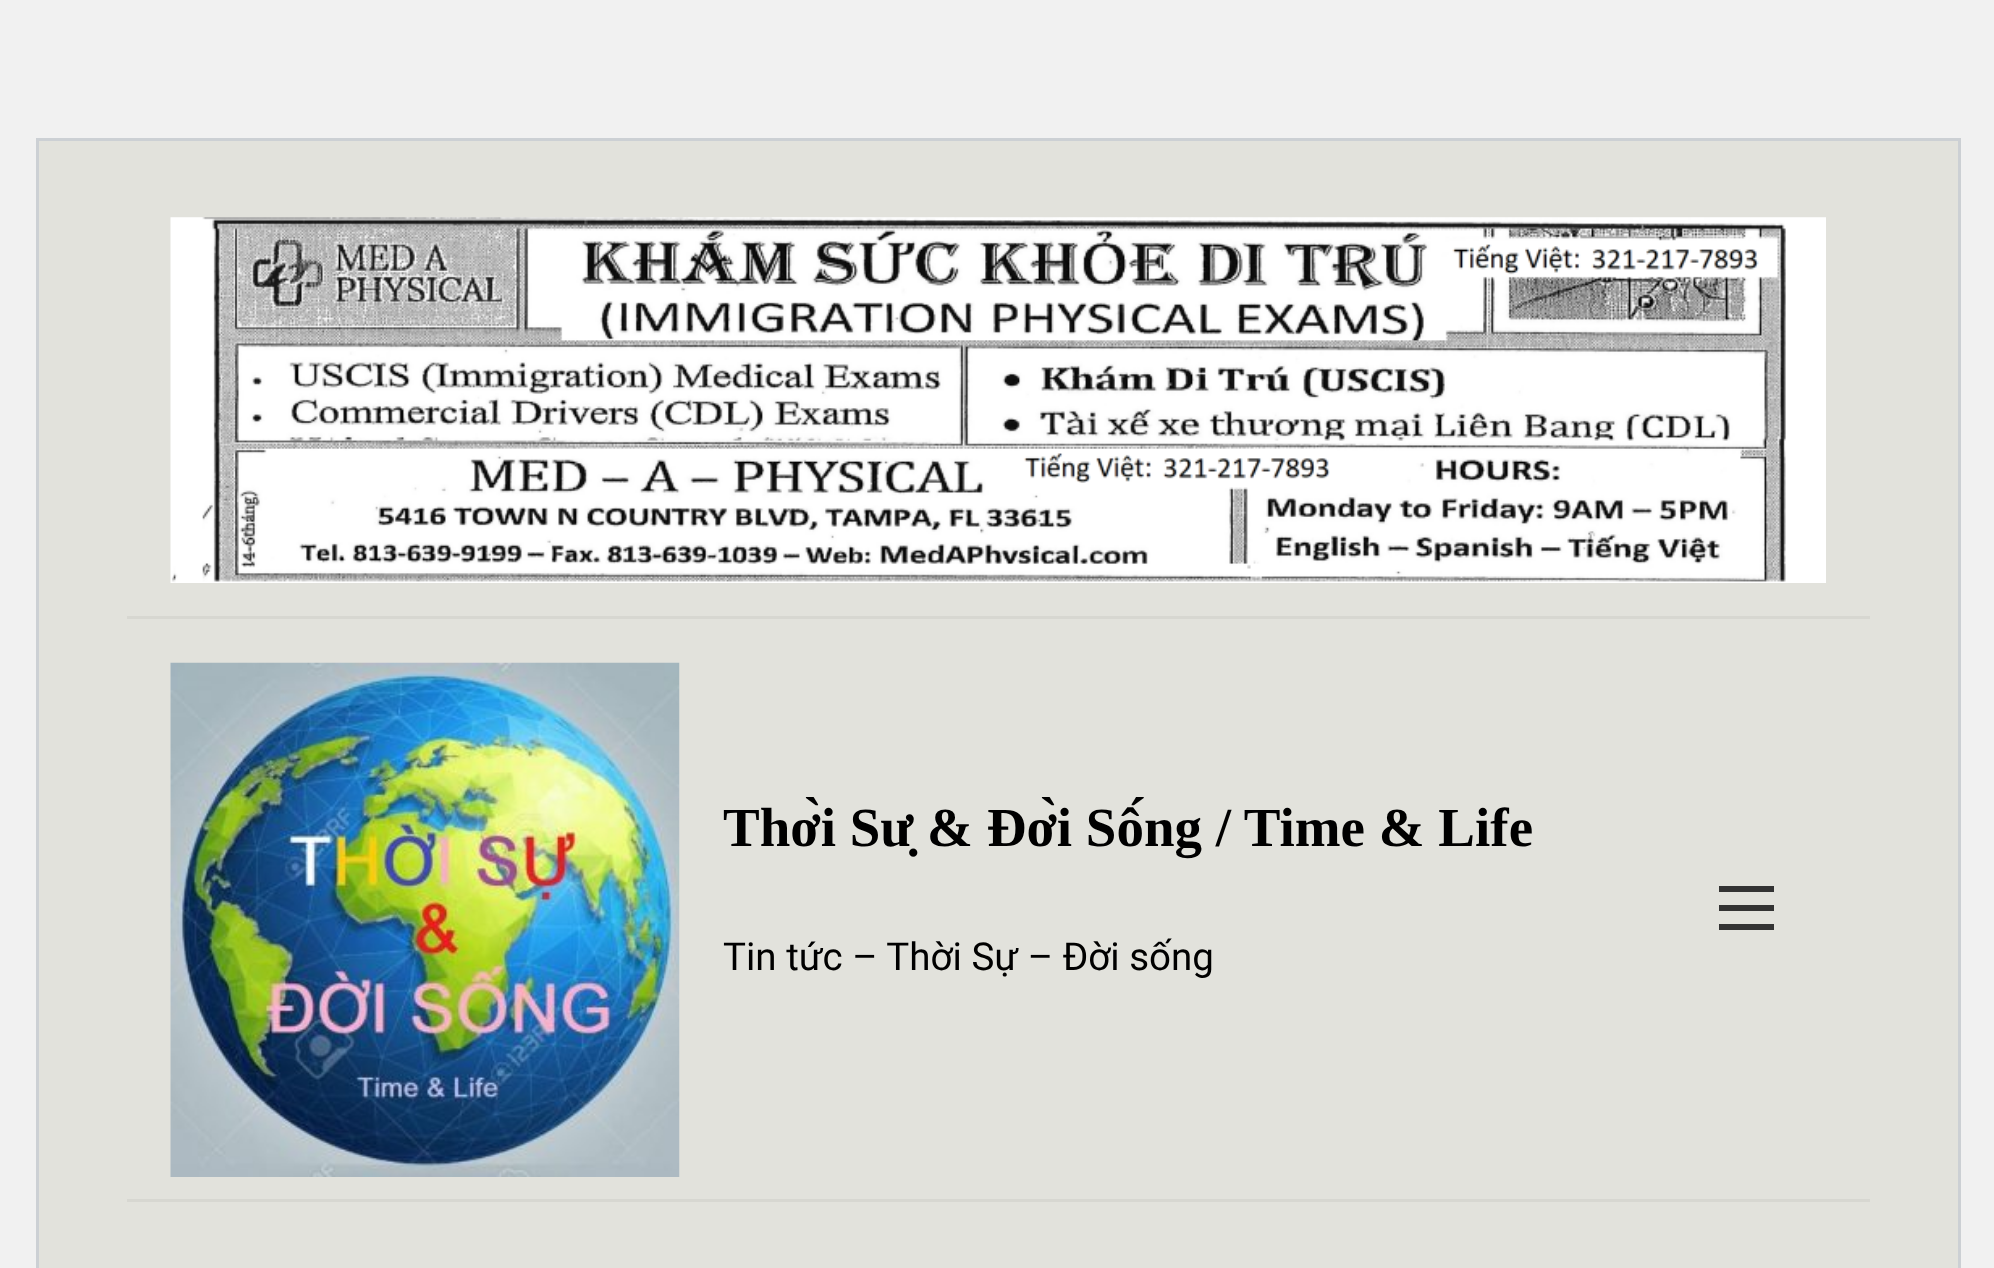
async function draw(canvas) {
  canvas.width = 1994
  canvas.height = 1268
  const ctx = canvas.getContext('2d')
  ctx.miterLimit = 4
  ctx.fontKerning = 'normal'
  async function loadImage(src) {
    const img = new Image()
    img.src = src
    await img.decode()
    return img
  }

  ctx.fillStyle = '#f1f1f1'
  ctx.fillRect(0, 0, 1994, 1268)
  ctx.fillStyle = '#e2e2dc'
  ctx.beginPath()
  ctx.rect(37.5, 139.5, 1922, 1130)
  ctx.fill()
  ctx.strokeStyle = '#ccd0d4'
  ctx.lineWidth = 3
  ctx.stroke()
  ctx.fillStyle = '#d7d7d1'
  ctx.fillRect(127, 616, 1743, 3)
  ctx.drawImage(await loadImage('image0.png'), 170, 217, 1656, 366)
  ctx.fillRect(127, 1199, 1743, 3)
  ctx.drawImage(await loadImage('image1.png'), 170, 662, 510, 515)
  ctx.font = 'bold 55px Liberation Serif'
  ctx.fillStyle = '#000'
  ctx.fillText('Thời Sự & Đời Sống / Time & Life', 723, 846)
  ctx.font = '38.5px Roboto'
  ctx.fillText('Tin tức – Thời Sự – Đời sống', 723, 970)
  ctx.fillStyle = '#333'
  ctx.fillRect(1719, 924, 55, 6)
  ctx.fillRect(1719, 886, 55, 6)
  ctx.fillRect(1719, 905, 55, 6)
}

draw(document.querySelector('canvas'))
